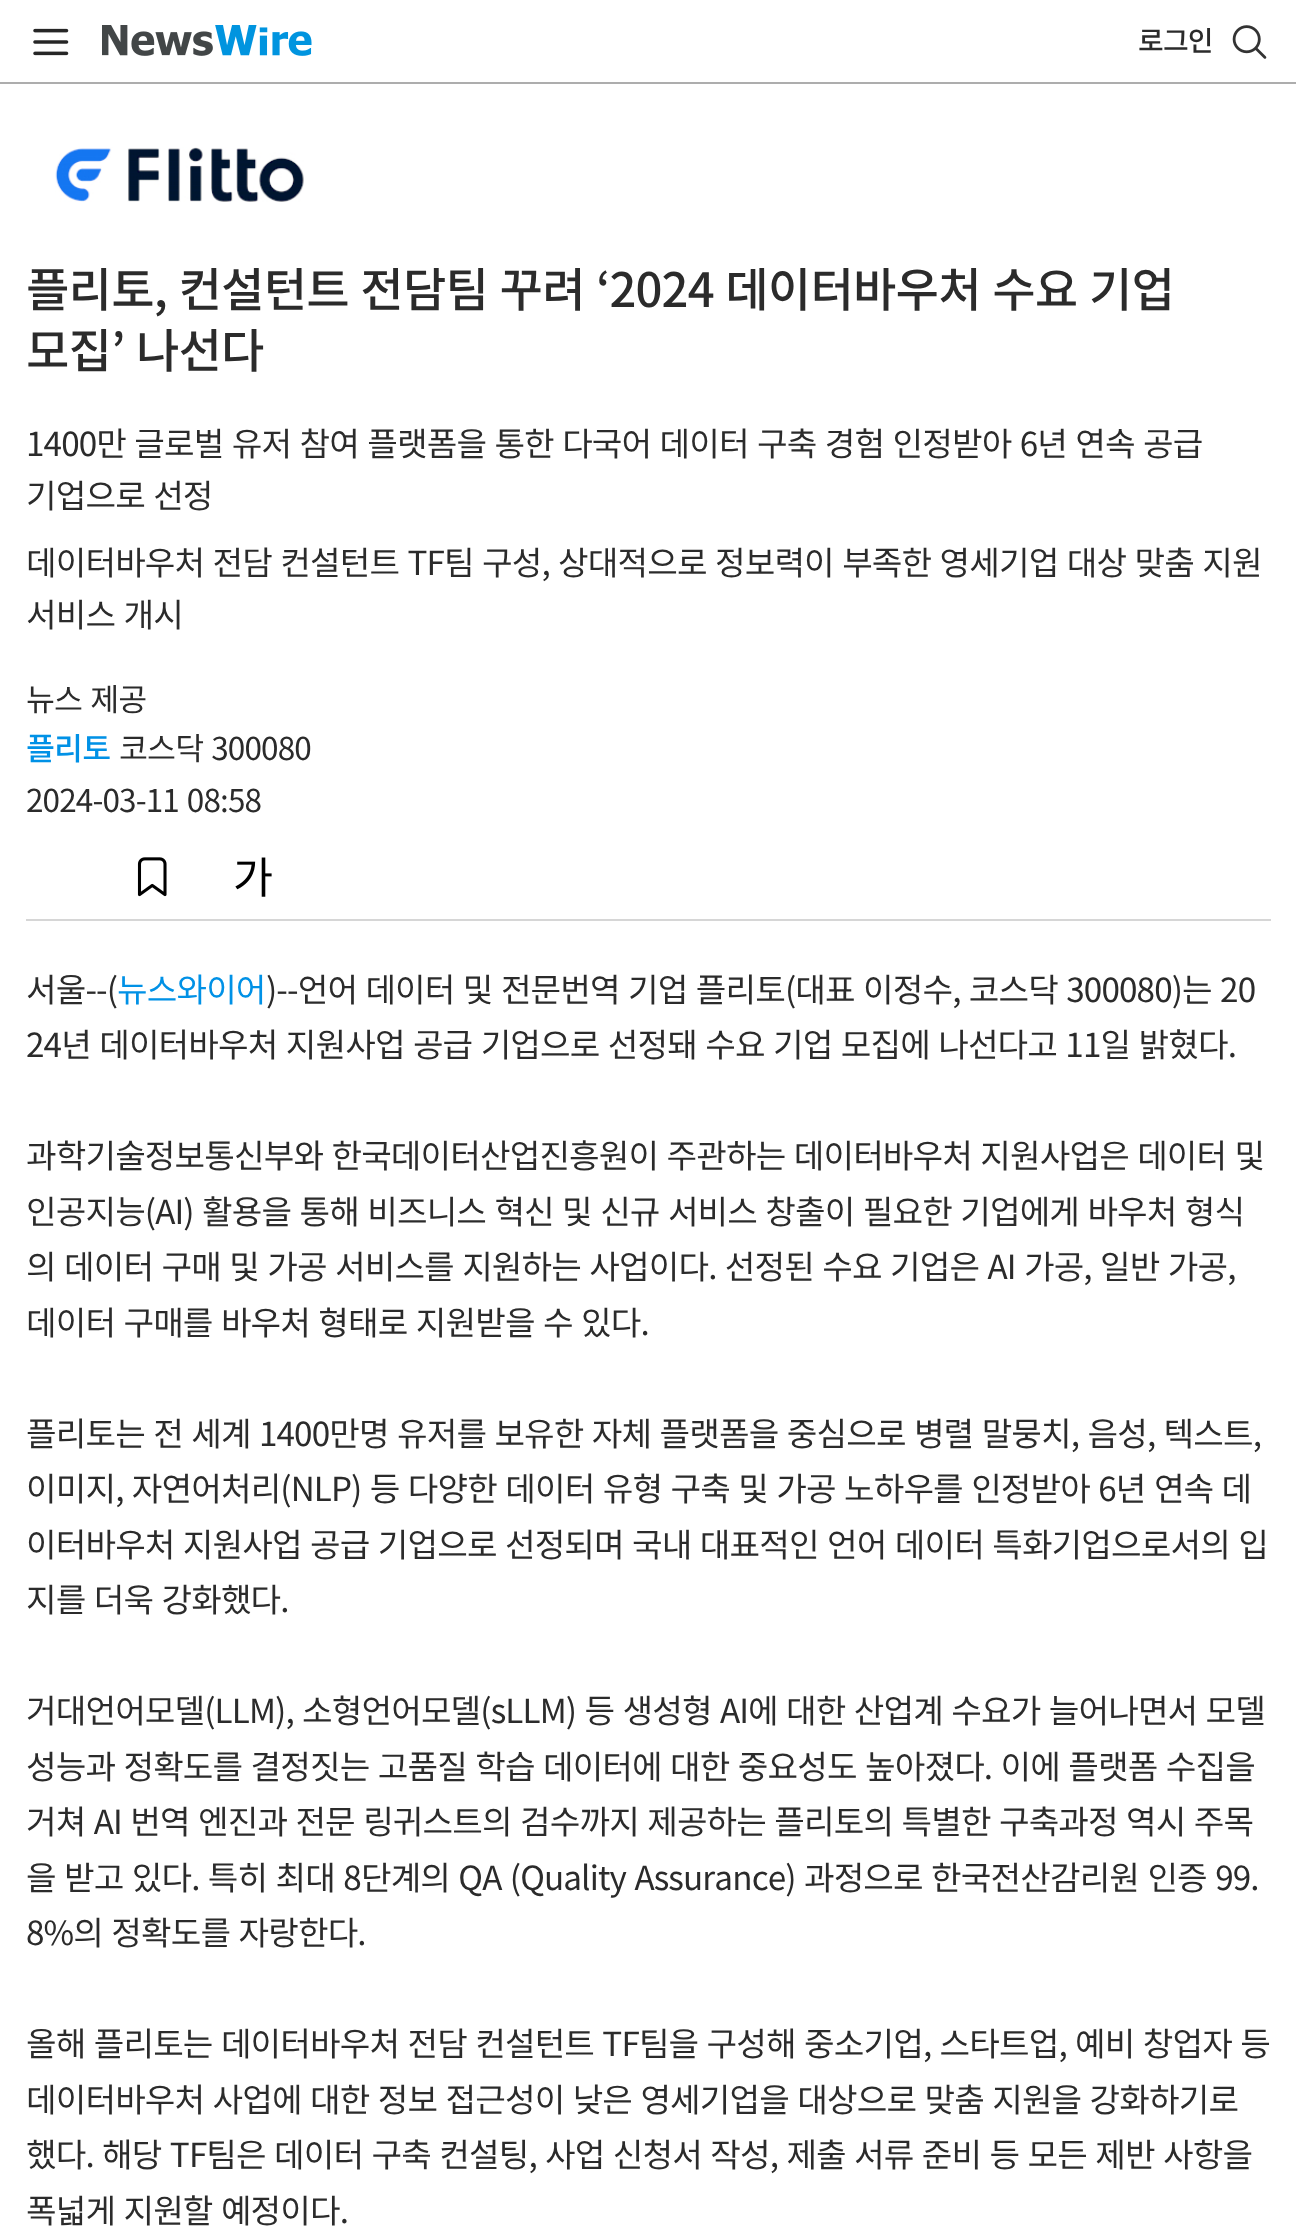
async function draw(canvas) {
  canvas.width = 1296
  canvas.height = 2236
  const ctx = canvas.getContext('2d')
  ctx.miterLimit = 4
  ctx.fontKerning = 'normal'
  async function loadImage(src) {
    const img = new Image()
    img.src = src
    await img.decode()
    return img
  }

  ctx.fillStyle = '#fff'
  ctx.fillRect(0, 0, 1296, 2236)
  ctx.fillStyle = '#adadad'
  ctx.fillRect(0, 82, 1296, 2)
  ctx.drawImage(await loadImage('image0.png'), 33, 28, 36, 28)
  ctx.drawImage(await loadImage('image1.png'), 102, 25, 210, 31)
  ctx.letterSpacing = '-0.88px'
  ctx.font = '500 28px Noto Sans KR'
  ctx.fillStyle = '#2b2b2b'
  ctx.fillText('로그인', 1138, 51)
  ctx.drawImage(await loadImage('image2.png'), 1232, 25, 35, 34)
  ctx.fillStyle = '#d6d6d6'
  ctx.fillRect(26, 919, 1245, 2)
  ctx.drawImage(await loadImage('image3.png'), 55, 147, 249, 55)
  ctx.wordSpacing = '1.75px'
  ctx.font = '500 47.25px Noto Sans KR'
  ctx.fillStyle = '#2b2b2b'
  ctx.fillText('플리토, 컨설턴트 전담팀 꾸려 ‘2024 데이터바우처 수요 기업', 26, 307)
  ctx.fillText('모집’ 나선다', 26, 368)
  ctx.font = '33.25px Noto Sans KR'
  ctx.fillText('1400만 글로벌 유저 참여 플랫폼을 통한 다국어 데이터 구축 경험 인정받아 6년 연속 공급', 26, 456)
  ctx.fillText('기업으로 선정', 26, 508)
  ctx.fillText('데이터바우처 전담 컨설턴트 TF팀 구성, 상대적으로 정보력이 부족한 영세기업 대상 맞춤 지원', 26, 575)
  ctx.fillText('서비스 개시', 26, 627)
  ctx.font = '31.5px Noto Sans KR'
  ctx.fillText('뉴스 제공', 26, 711)
  ctx.wordSpacing = '0px'
  ctx.font = '500 31.5px Noto Sans KR'
  ctx.fillStyle = '#0091e6'
  ctx.fillText('플리토', 26, 760)
  ctx.wordSpacing = '1.75px'
  ctx.font = '31.5px Noto Sans KR'
  ctx.fillStyle = '#2b2b2b'
  ctx.fillText('코스닥 300080', 119, 760)
  ctx.fillText('2024-03-11 08:58', 26, 812)
  ctx.drawImage(await loadImage('image4.png'), 137, 857, 30, 40)
  ctx.drawImage(await loadImage('image5.png'), 235, 857, 37, 40)
  ctx.wordSpacing = '0px'
  ctx.font = '33.25px Noto Sans KR'
  ctx.fillText('서울--(', 26, 1002)
  ctx.fillStyle = '#0091e6'
  ctx.fillText('뉴스와이어', 117, 1002)
  ctx.wordSpacing = '1.75px'
  ctx.fillStyle = '#2b2b2b'
  ctx.fillText(')--언어 데이터 및 전문번역 기업 플리토(대표 이정수, 코스닥 300080)는 20', 266, 1002)
  ctx.fillText('24년 데이터바우처 지원사업 공급 기업으로 선정돼 수요 기업 모집에 나선다고 11일 밝혔다.', 26, 1057)
  ctx.fillText('과학기술정보통신부와 한국데이터산업진흥원이 주관하는 데이터바우처 지원사업은 데이터 및', 26, 1168)
  ctx.fillText('인공지능(AI) 활용을 통해 비즈니스 혁신 및 신규 서비스 창출이 필요한 기업에게 바우처 형식', 26, 1224)
  ctx.fillText('의 데이터 구매 및 가공 서비스를 지원하는 사업이다. 선정된 수요 기업은 AI 가공, 일반 가공,', 26, 1279)
  ctx.fillText('데이터 구매를 바우처 형태로 지원받을 수 있다.', 26, 1335)
  ctx.fillText('플리토는 전 세계 1400만명 유저를 보유한 자체 플랫폼을 중심으로 병렬 말뭉치, 음성, 텍스트,', 26, 1446)
  ctx.fillText('이미지, 자연어처리(NLP) 등 다양한 데이터 유형 구축 및 가공 노하우를 인정받아 6년 연속 데', 26, 1501)
  ctx.fillText('이터바우처 지원사업 공급 기업으로 선정되며 국내 대표적인 언어 데이터 특화기업으로서의 입', 26, 1557)
  ctx.fillText('지를 더욱 강화했다.', 26, 1612)
  ctx.fillText('거대언어모델(LLM), 소형언어모델(sLLM) 등 생성형 AI에 대한 산업계 수요가 늘어나면서 모델', 26, 1723)
  ctx.fillText('성능과 정확도를 결정짓는 고품질 학습 데이터에 대한 중요성도 높아졌다. 이에 플랫폼 수집을', 26, 1779)
  ctx.fillText('거쳐 AI 번역 엔진과 전문 링귀스트의 검수까지 제공하는 플리토의 특별한 구축과정 역시 주목', 26, 1834)
  ctx.fillText('을 받고 있다. 특히 최대 8단계의 QA (Quality Assurance) 과정으로 한국전산감리원 인증 99.', 26, 1890)
  ctx.fillText('8%의 정확도를 자랑한다.', 26, 1945)
  ctx.fillText('올해 플리토는 데이터바우처 전담 컨설턴트 TF팀을 구성해 중소기업, 스타트업, 예비 창업자 등', 26, 2056)
  ctx.fillText('데이터바우처 사업에 대한 정보 접근성이 낮은 영세기업을 대상으로 맞춤 지원을 강화하기로', 26, 2112)
  ctx.fillText('했다. 해당 TF팀은 데이터 구축 컨설팅, 사업 신청서 작성, 제출 서류 준비 등 모든 제반 사항을', 26, 2167)
  ctx.fillText('폭넓게 지원할 예정이다.', 26, 2223)
}

draw(document.querySelector('canvas'))
